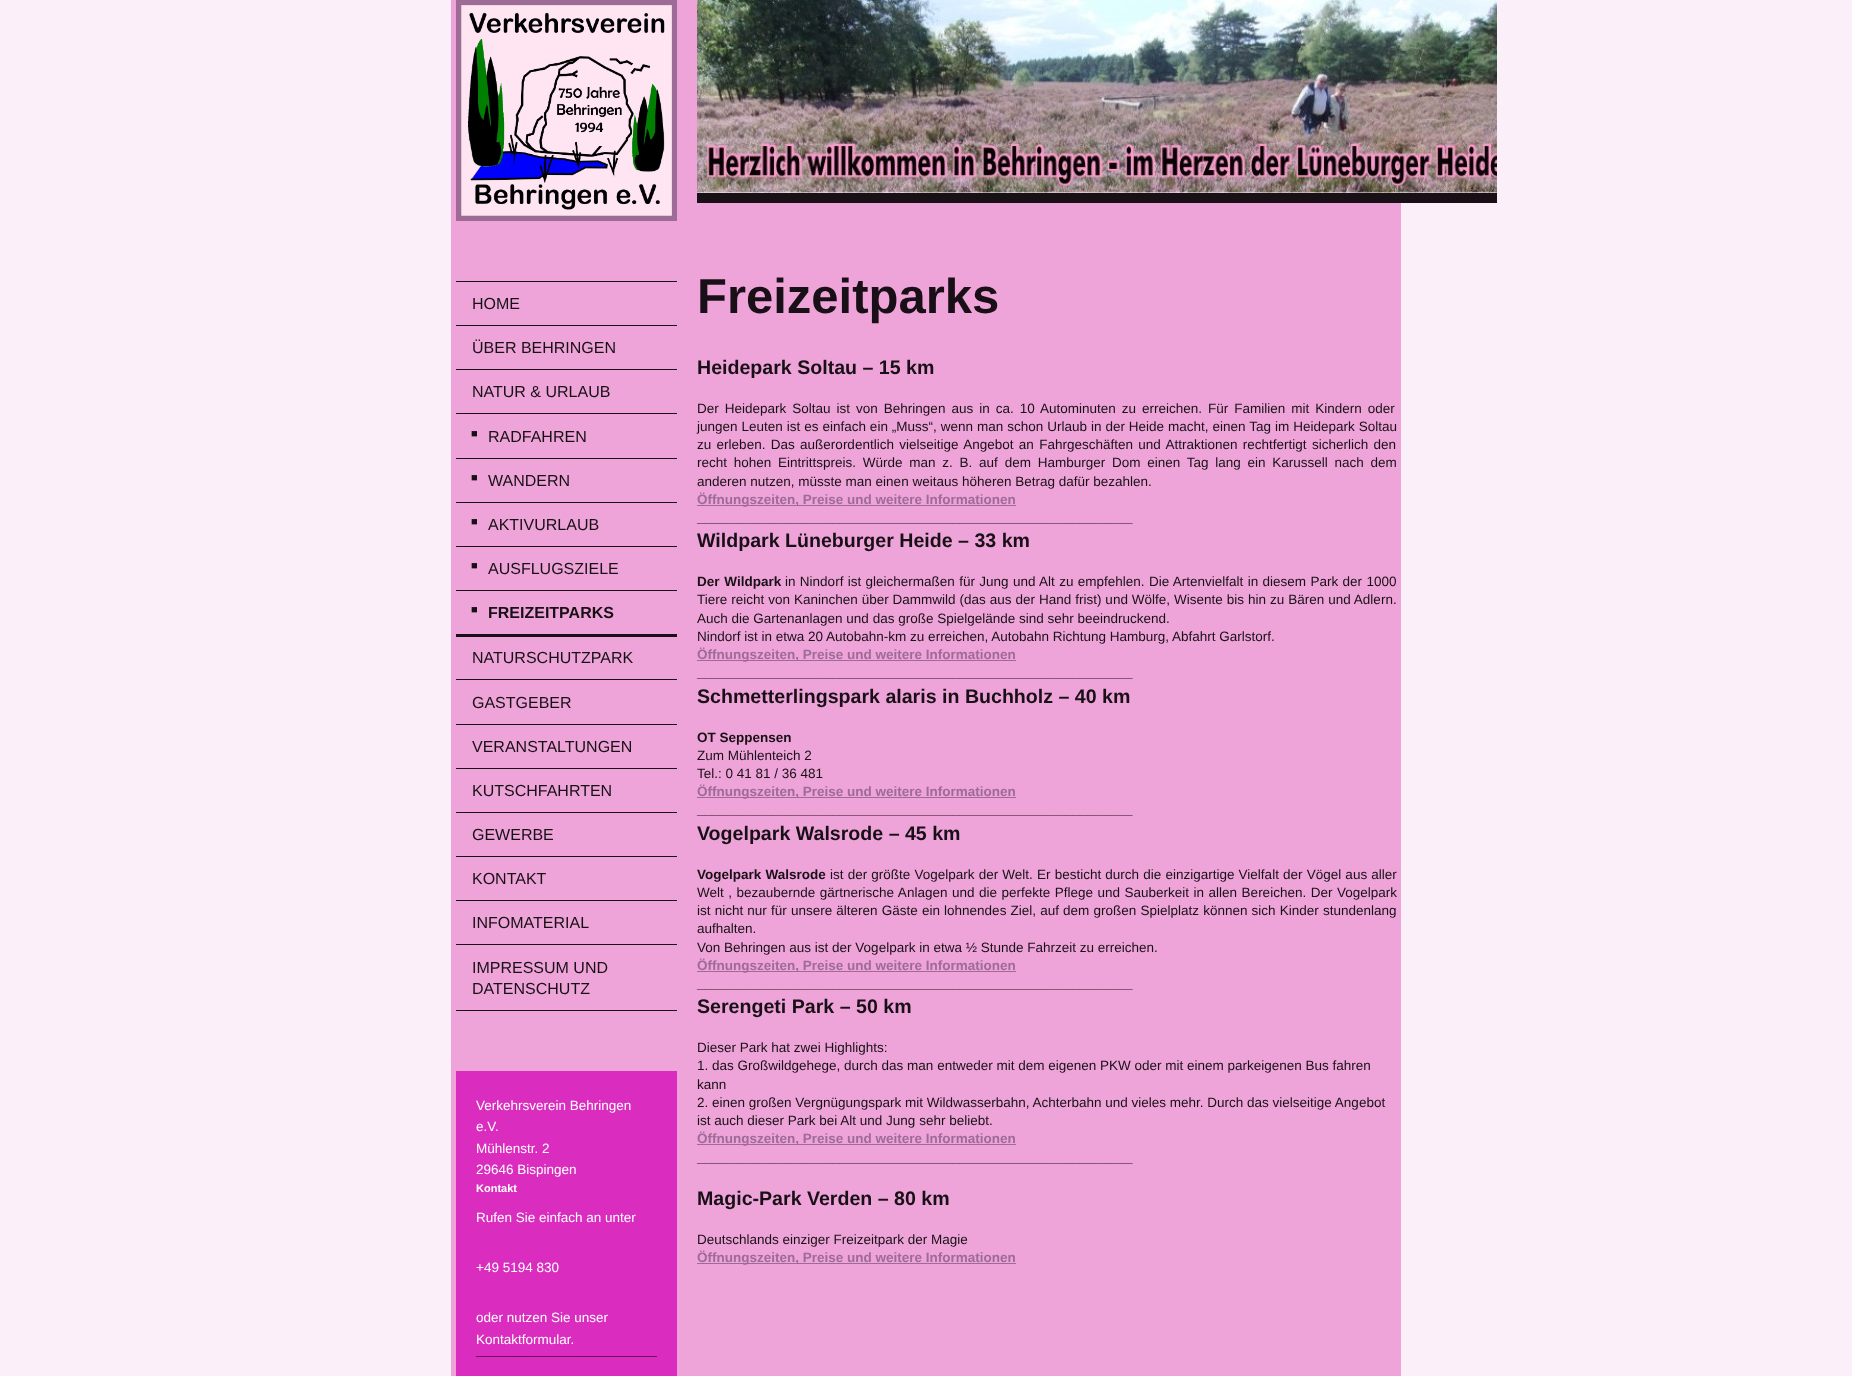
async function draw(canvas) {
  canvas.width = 1852
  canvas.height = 1376
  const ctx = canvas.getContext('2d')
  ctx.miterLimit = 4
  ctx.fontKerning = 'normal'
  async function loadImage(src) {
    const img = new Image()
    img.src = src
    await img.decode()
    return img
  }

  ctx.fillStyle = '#fbeffa'
  ctx.fillRect(0, 0, 1852, 1376)
  ctx.fillStyle = '#eea4d8'
  ctx.fillRect(451, 0, 950, 1376)
  ctx.fillStyle = '#9e6b97'
  ctx.fillRect(456, 0, 221, 221)
  ctx.drawImage(await loadImage('image0.png'), 461, 5, 211, 211)
  ctx.fillStyle = '#181016'
  ctx.fillRect(456, 281, 221, 1)
  ctx.fillRect(456, 325, 221, 1)
  ctx.font = '16px Liberation Sans'
  ctx.fillText('HOME', 472, 309)
  ctx.fillRect(456, 369, 221, 1)
  ctx.fillText('ÜBER BEHRINGEN', 472, 353)
  ctx.fillRect(456, 413, 221, 1)
  ctx.fillText('NATUR & URLAUB', 472, 397)
  ctx.fillRect(456, 458, 221, 1)
  ctx.font = '11px Liberation Sans'
  ctx.fillText('■', 471, 437)
  ctx.font = '16px Liberation Sans'
  ctx.fillText('RADFAHREN', 488, 442)
  ctx.fillRect(456, 502, 221, 1)
  ctx.font = '11px Liberation Sans'
  ctx.fillText('■', 471, 481)
  ctx.font = '16px Liberation Sans'
  ctx.fillText('WANDERN', 488, 486)
  ctx.fillRect(456, 546, 221, 1)
  ctx.font = '11px Liberation Sans'
  ctx.fillText('■', 471, 525)
  ctx.font = '16px Liberation Sans'
  ctx.fillText('AKTIVURLAUB', 488, 530)
  ctx.fillRect(456, 590, 221, 1)
  ctx.font = '11px Liberation Sans'
  ctx.fillText('■', 471, 569)
  ctx.font = '16px Liberation Sans'
  ctx.fillText('AUSFLUGSZIELE', 488, 574)
  ctx.fillRect(456, 634, 221, 3)
  ctx.font = 'bold 11px Liberation Sans'
  ctx.fillText('■', 471, 613)
  ctx.font = 'bold 16px Liberation Sans'
  ctx.fillText('FREIZEITPARKS', 488, 618)
  ctx.fillRect(456, 679, 221, 1)
  ctx.font = '16px Liberation Sans'
  ctx.fillText('NATURSCHUTZPARK', 472, 663)
  ctx.fillRect(456, 724, 221, 1)
  ctx.fillText('GASTGEBER', 472, 708)
  ctx.fillRect(456, 768, 221, 1)
  ctx.fillText('VERANSTALTUNGEN', 472, 752)
  ctx.fillRect(456, 812, 221, 1)
  ctx.fillText('KUTSCHFAHRTEN', 472, 796)
  ctx.fillRect(456, 856, 221, 1)
  ctx.fillText('GEWERBE', 472, 840)
  ctx.fillRect(456, 900, 221, 1)
  ctx.fillText('KONTAKT', 472, 884)
  ctx.fillRect(456, 944, 221, 1)
  ctx.fillText('INFOMATERIAL', 472, 928)
  ctx.fillRect(456, 1010, 221, 1)
  ctx.fillText('IMPRESSUM UND', 472, 973)
  ctx.fillText('DATENSCHUTZ', 472, 994)
  ctx.fillStyle = '#da2cbe'
  ctx.fillRect(456, 1071, 221, 305)
  ctx.font = '13.5px Liberation Sans'
  ctx.fillStyle = '#fff'
  ctx.fillText('Verkehrsverein Behringen', 476, 1110)
  ctx.fillText('e.V.', 476, 1131)
  ctx.fillText('Mühlenstr. 2', 476, 1153)
  ctx.fillText('29646 Bispingen', 476, 1174)
  ctx.font = 'bold 11px Liberation Sans'
  ctx.fillText('Kontakt', 476, 1192)
  ctx.font = '13.5px Liberation Sans'
  ctx.fillText('Rufen Sie einfach an unter', 476, 1222)
  ctx.fillText('+49 5194 830', 476, 1272)
  ctx.fillText('oder nutzen Sie unser', 476, 1322)
  ctx.fillText('Kontaktformular.', 476, 1344)
  ctx.fillStyle = '#69135b'
  ctx.fillRect(476, 1356, 181, 1)
  ctx.fillStyle = '#181016'
  ctx.fillRect(697, 193, 800, 10)
  ctx.drawImage(await loadImage('image1.png'), 697, 0, 800, 193)
  ctx.font = 'bold 49px Liberation Sans'
  ctx.fillText('Freizeitparks', 697, 313)
  ctx.font = 'bold 19.6px Liberation Sans'
  ctx.fillText('Heidepark Soltau – 15 km', 697, 374)
  ctx.wordSpacing = '2.25px'
  ctx.font = '13.5px Liberation Sans'
  ctx.fillText('Der Heidepark Soltau ist von Behringen aus in ca. 10 Autominuten zu erreichen. Für Familien mit Kindern oder', 697, 413)
  ctx.wordSpacing = '0.2px'
  ctx.fillText('jungen Leuten ist es einfach ein „Muss“, wenn man schon Urlaub in der Heide macht, einen Tag im Heidepark Soltau', 697, 431)
  ctx.wordSpacing = '1.6px'
  ctx.fillText('zu erleben. Das außerordentlich vielseitige Angebot an Fahrgeschäften und Attraktionen rechtfertigt sicherlich den', 697, 449)
  ctx.wordSpacing = '3px'
  ctx.fillText('recht hohen Eintrittspreis. Würde man z. B. auf dem Hamburger Dom einen Tag lang ein Karussell nach dem', 697, 467)
  ctx.wordSpacing = '0px'
  ctx.fillText('anderen nutzen, müsste man einen weitaus höheren Betrag dafür bezahlen.', 697, 486)
  ctx.fillStyle = '#9e6b97'
  ctx.fillRect(697, 505, 319, 1)
  ctx.font = 'bold 13.5px Liberation Sans'
  ctx.fillText('Öffnungszeiten, Preise und weitere Informationen', 697, 504)
  ctx.fillStyle = '#181016'
  ctx.fillText('__________________________________________________________', 697, 522)
  ctx.font = 'bold 19.6px Liberation Sans'
  ctx.fillText('Wildpark Lüneburger Heide – 33 km', 697, 547)
  ctx.wordSpacing = '1px'
  ctx.font = 'bold 13.5px Liberation Sans'
  ctx.fillText('Der Wildpark', 697, 586)
  ctx.wordSpacing = '0.6px'
  ctx.font = '13.5px Liberation Sans'
  ctx.fillText('in Nindorf ist gleichermaßen für Jung und Alt zu empfehlen. Die Artenvielfalt in diesem Park der 1000', 785, 586)
  ctx.wordSpacing = '0.2px'
  ctx.fillText('Tiere reicht von Kaninchen über Dammwild (das aus der Hand frist) und Wölfe, Wisente bis hin zu Bären und Adlern.', 697, 604)
  ctx.wordSpacing = '0px'
  ctx.fillText('Auch die Gartenanlagen und das große Spielgelände sind sehr beeindruckend.', 697, 623)
  ctx.fillText('Nindorf ist in etwa 20 Autobahn-km zu erreichen, Autobahn Richtung Hamburg, Abfahrt Garlstorf.', 697, 641)
  ctx.fillStyle = '#9e6b97'
  ctx.fillRect(697, 660, 319, 1)
  ctx.font = 'bold 13.5px Liberation Sans'
  ctx.fillText('Öffnungszeiten, Preise und weitere Informationen', 697, 659)
  ctx.fillStyle = '#181016'
  ctx.fillText('__________________________________________________________', 697, 677)
  ctx.font = 'bold 19.6px Liberation Sans'
  ctx.fillText('Schmetterlingspark alaris in Buchholz – 40 km', 697, 703)
  ctx.font = 'bold 13.5px Liberation Sans'
  ctx.fillText('OT Seppensen', 697, 742)
  ctx.font = '13.5px Liberation Sans'
  ctx.fillText('Zum Mühlenteich 2', 697, 760)
  ctx.fillText('Tel.: 0 41 81 / 36 481', 697, 778)
  ctx.fillStyle = '#9e6b97'
  ctx.fillRect(697, 797, 319, 1)
  ctx.font = 'bold 13.5px Liberation Sans'
  ctx.fillText('Öffnungszeiten, Preise und weitere Informationen', 697, 796)
  ctx.fillStyle = '#181016'
  ctx.fillText('__________________________________________________________', 697, 814)
  ctx.font = 'bold 19.6px Liberation Sans'
  ctx.fillText('Vogelpark Walsrode – 45 km', 697, 840)
  ctx.wordSpacing = '0.4px'
  ctx.font = 'bold 13.5px Liberation Sans'
  ctx.fillText('Vogelpark Walsrode', 697, 879)
  ctx.font = '13.5px Liberation Sans'
  ctx.fillText('ist der größte Vogelpark der Welt. Er besticht durch die einzigartige Vielfalt der Vögel aus aller', 830, 879)
  ctx.wordSpacing = '0.75px'
  ctx.fillText('Welt , bezaubernde gärtnerische Anlagen und die perfekte Pflege und Sauberkeit in allen Bereichen. Der Vogelpark', 697, 897)
  ctx.wordSpacing = '0.4px'
  ctx.fillText('ist nicht nur für unsere älteren Gäste ein lohnendes Ziel, auf dem großen Spielplatz können sich Kinder stundenlang', 697, 915)
  ctx.wordSpacing = '0px'
  ctx.fillText('aufhalten.', 697, 933)
  ctx.fillText('Von Behringen aus ist der Vogelpark in etwa ½ Stunde Fahrzeit zu erreichen.', 697, 952)
  ctx.fillStyle = '#9e6b97'
  ctx.fillRect(697, 971, 319, 1)
  ctx.font = 'bold 13.5px Liberation Sans'
  ctx.fillText('Öffnungszeiten, Preise und weitere Informationen', 697, 970)
  ctx.fillStyle = '#181016'
  ctx.fillText('__________________________________________________________', 697, 988)
  ctx.font = 'bold 19.6px Liberation Sans'
  ctx.fillText('Serengeti Park – 50 km', 697, 1013)
  ctx.font = '13.5px Liberation Sans'
  ctx.fillText('Dieser Park hat zwei Highlights:', 697, 1052)
  ctx.fillText('1. das Großwildgehege, durch das man entweder mit dem eigenen PKW oder mit einem parkeigenen Bus fahren', 697, 1070)
  ctx.fillText('kann', 697, 1089)
  ctx.fillText('2. einen großen Vergnügungspark mit Wildwasserbahn, Achterbahn und vieles mehr. Durch das vielseitige Angebot', 697, 1107)
  ctx.fillText('ist auch dieser Park bei Alt und Jung sehr beliebt.', 697, 1125)
  ctx.fillStyle = '#9e6b97'
  ctx.fillRect(697, 1144, 319, 1)
  ctx.font = 'bold 13.5px Liberation Sans'
  ctx.fillText('Öffnungszeiten, Preise und weitere Informationen', 697, 1143)
  ctx.fillStyle = '#181016'
  ctx.fillText('__________________________________________________________', 697, 1162)
  ctx.font = 'bold 19.6px Liberation Sans'
  ctx.fillText('Magic-Park Verden – 80 km', 697, 1205)
  ctx.font = '13.5px Liberation Sans'
  ctx.fillText('Deutschlands einziger Freizeitpark der Magie', 697, 1244)
  ctx.fillStyle = '#9e6b97'
  ctx.fillRect(697, 1263, 319, 1)
  ctx.font = 'bold 13.5px Liberation Sans'
  ctx.fillText('Öffnungszeiten, Preise und weitere Informationen', 697, 1262)
}

draw(document.querySelector('canvas'))
